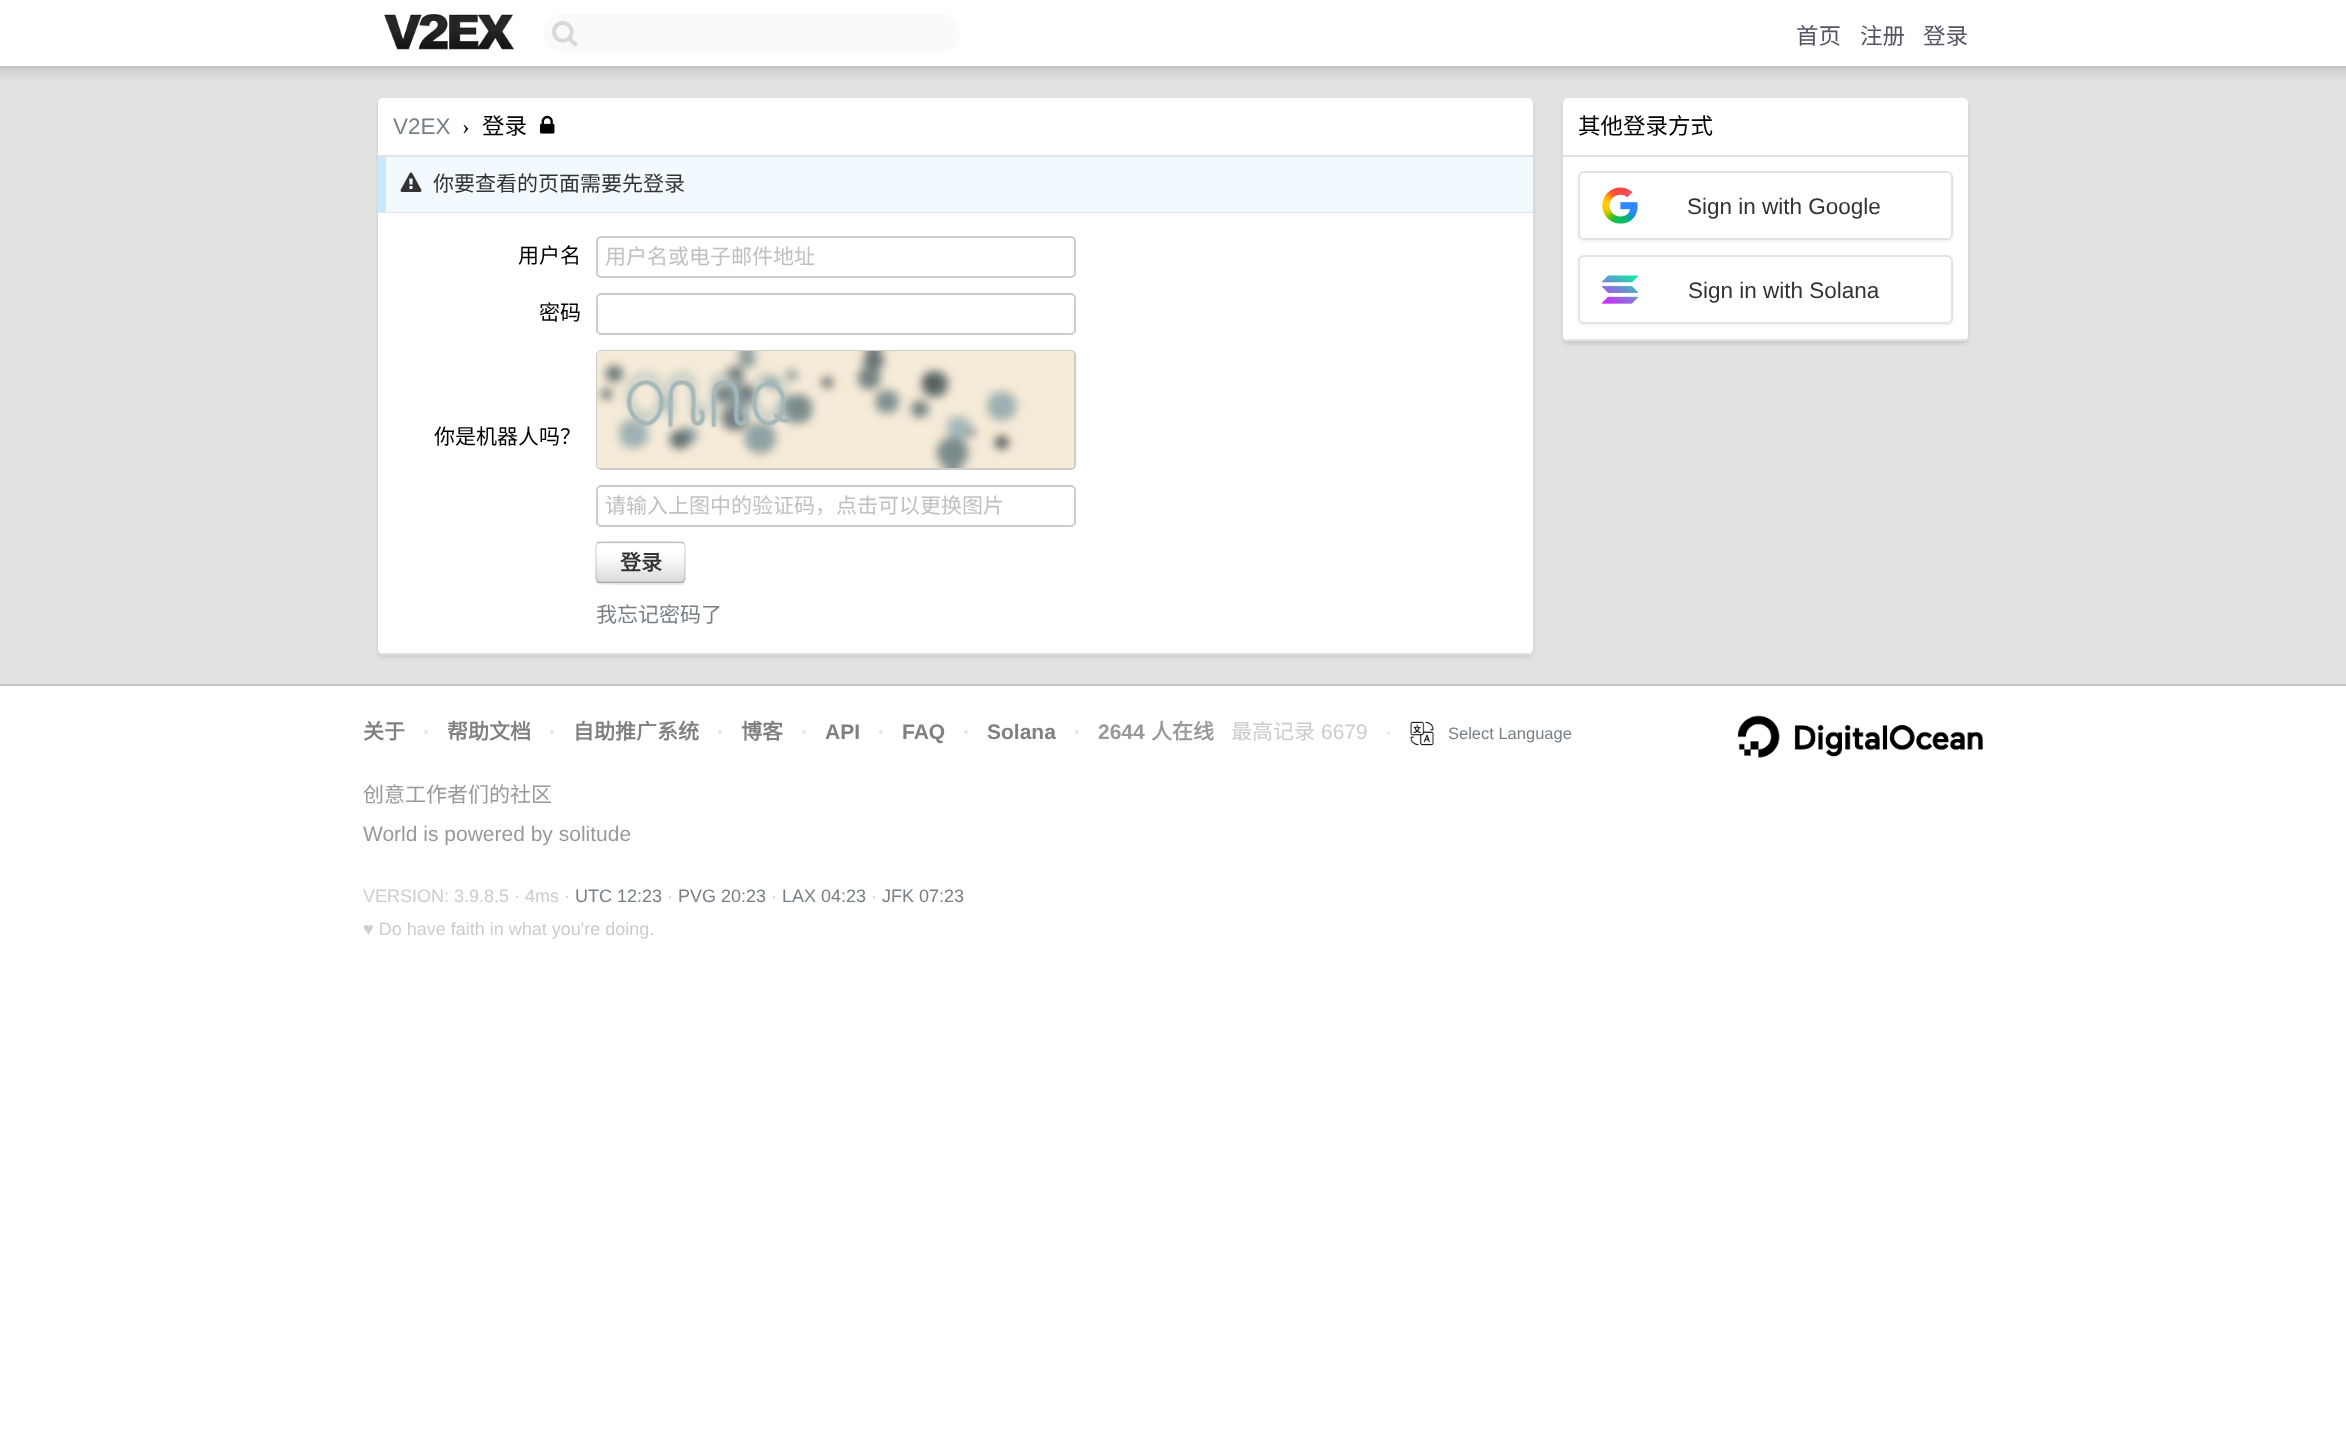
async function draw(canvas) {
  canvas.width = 2346
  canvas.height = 1447
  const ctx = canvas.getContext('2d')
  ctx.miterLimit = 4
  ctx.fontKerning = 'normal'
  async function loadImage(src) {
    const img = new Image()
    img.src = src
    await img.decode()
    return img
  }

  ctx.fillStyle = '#fff'
  ctx.fillRect(0, 0, 2346, 1447)
  ctx.fillStyle = '#c7c7c7'
  ctx.fillRect(0, 66, 2346, 2)
  ctx.drawImage(await loadImage('image0.png'), 384, 14, 130, 36)
  ctx.fillStyle = '#fafafa'
  ctx.beginPath()
  ctx.roundRect(543, 14, 417, 39, 19.5)
  ctx.fill()
  ctx.drawImage(await loadImage('image1.png'), 552, 21, 26, 26)
  ctx.font = '22.5px Noto Sans CJK SC'
  ctx.fillStyle = '#556'
  ctx.fillText('首页', 1796, 44)
  ctx.fillText('注册', 1860, 44)
  ctx.fillText('登录', 1923, 44)
  ctx.fillStyle = '#e2e2e2'
  ctx.fillRect(0, 68, 2346, 616)
  ctx.drawImage(await loadImage('image2.png'), 0, 67, 2346, 12)
  ctx.fillStyle = '#0000001a'
  ctx.filter = 'blur(2px)'
  ctx.beginPath()
  ctx.roundRect(378, 101, 1155, 556, 5)
  ctx.fill()
  ctx.filter = 'none'
  ctx.fillStyle = '#fff'
  ctx.beginPath()
  ctx.roundRect(378, 98, 1155, 556, 5)
  ctx.fill()
  ctx.fillStyle = '#e2e2e2'
  ctx.fillRect(381, 653, 1151, 2)
  ctx.fillStyle = '#f3faff'
  ctx.fillRect(378, 157, 1155, 56)
  ctx.fillStyle = '#e2e2e2'
  ctx.beginPath()
  ctx.moveTo(1533, 213)
  ctx.lineTo(378, 213)
  ctx.lineTo(386, 212)
  ctx.lineTo(1533, 212)
  ctx.closePath()
  ctx.fill()
  ctx.fillStyle = '#c7e8ff'
  ctx.beginPath()
  ctx.moveTo(378, 213)
  ctx.lineTo(378, 156)
  ctx.lineTo(386, 156)
  ctx.lineTo(386, 212)
  ctx.closePath()
  ctx.fill()
  ctx.fillStyle = '#e2e2e2'
  ctx.fillRect(378, 155, 1155, 2)
  ctx.font = '22.5px Liberation Sans'
  ctx.fillStyle = '#778087'
  ctx.fillText('V2EX', 393, 134)
  ctx.font = '22.5px Liberation Serif'
  ctx.fillStyle = '#000'
  ctx.fillText('›', 462, 134)
  ctx.font = '22.5px Noto Sans CJK SC'
  ctx.fillText('登录', 482, 134)
  ctx.drawImage(await loadImage('image3.png'), 540, 115, 15, 19)
  ctx.drawImage(await loadImage('image4.png'), 400, 172, 22, 20)
  ctx.font = '21px Noto Sans CJK SC'
  ctx.fillStyle = '#333'
  ctx.fillText('你要查看的页面需要先登录', 433, 191)
  ctx.fillStyle = '#000'
  ctx.fillText('用户名', 518, 263)
  ctx.beginPath()
  ctx.roundRect(597, 237, 478, 40, 4)
  ctx.strokeStyle = '#ccc'
  ctx.lineWidth = 2
  ctx.stroke()
  ctx.fillStyle = '#c0c0c0'
  ctx.fillText('用户名或电子邮件地址', 605, 264)
  ctx.fillStyle = '#000'
  ctx.fillText('密码', 539, 320)
  ctx.beginPath()
  ctx.roundRect(597, 294, 478, 40, 4)
  ctx.stroke()
  ctx.fillText('你是机器人吗？', 434, 444)
  ctx.beginPath()
  ctx.roundRect(597, 351, 478, 118, 4)
  ctx.stroke()
  ctx.drawImage(await loadImage('image5.png'), 597, 351, 477, 117)
  ctx.beginPath()
  ctx.roundRect(597, 486, 478, 40, 4)
  ctx.stroke()
  ctx.fillStyle = '#c0c0c0'
  ctx.fillText('请输入上图中的验证码，点击可以更换图片', 605, 513)
  ctx.fillStyle = '#ececed'
  ctx.beginPath()
  ctx.moveTo(596, 581)
  ctx.bezierCurveTo(597, 583, 599, 585, 601, 585)
  ctx.lineTo(681, 585)
  ctx.bezierCurveTo(684, 585, 686, 583, 686, 580)
  ctx.lineTo(686, 548)
  ctx.lineTo(685, 546)
  ctx.lineTo(686, 568)
  ctx.bezierCurveTo(686, 586, 687, 584, 668, 584)
  ctx.lineTo(614, 584)
  ctx.bezierCurveTo(613, 584, 600, 586, 597, 582)
  ctx.closePath()
  ctx.fill()
  ctx.fillStyle = '#fff'
  ctx.beginPath()
  ctx.roundRect(596, 542, 90, 42, 5)
  ctx.fill()
  ctx.drawImage(await loadImage('image6.png'), 595, 541, 91, 43)
  ctx.beginPath()
  ctx.moveTo(683.5, 581.5)
  ctx.lineTo(681.5, 582.5)
  ctx.lineTo(599.5, 582.5)
  ctx.lineTo(597.5, 581.5)
  ctx.strokeStyle = '#aaaaad'
  ctx.lineWidth = 1.5
  ctx.stroke()
  ctx.beginPath()
  ctx.moveTo(597.5, 581.5)
  ctx.bezierCurveTo(595.5, 579.5, 596, 575.5, 596, 573.5)
  ctx.lineTo(596, 562.5)
  ctx.bezierCurveTo(596, 540, 592, 542, 613.5, 542)
  ctx.lineTo(667.5, 542)
  ctx.bezierCurveTo(689, 542, 685, 540, 685, 562.5)
  ctx.lineTo(685, 573.5)
  ctx.bezierCurveTo(685, 575.5, 685.5, 579.5, 683.5, 581.5)
  ctx.strokeStyle = '#50505a33'
  ctx.stroke()
  ctx.font = 'bold 21px Noto Sans CJK SC'
  ctx.fillStyle = '#333'
  ctx.fillText('登录', 620, 570)
  ctx.font = '21px Noto Sans CJK SC'
  ctx.fillStyle = '#778087'
  ctx.fillText('我忘记密码了', 596, 622)
  ctx.fillStyle = '#0000001a'
  ctx.filter = 'blur(2px)'
  ctx.beginPath()
  ctx.roundRect(1563, 101, 405, 243, 5)
  ctx.fill()
  ctx.filter = 'none'
  ctx.fillStyle = '#fff'
  ctx.beginPath()
  ctx.roundRect(1563, 98, 405, 243, 5)
  ctx.fill()
  ctx.fillStyle = '#e2e2e2'
  ctx.fillRect(1566, 339, 401, 2)
  ctx.fillRect(1563, 155, 405, 2)
  ctx.font = '22.5px Noto Sans CJK SC'
  ctx.fillStyle = '#000'
  ctx.fillText('其他登录方式', 1578, 134)
  ctx.fillStyle = '#0000000d'
  ctx.filter = 'blur(1.5px)'
  ctx.beginPath()
  ctx.roundRect(1578, 173, 375, 69, 6)
  ctx.fill()
  ctx.filter = 'none'
  ctx.fillStyle = '#fff'
  ctx.beginPath()
  ctx.roundRect(1579, 172, 373, 67, 5)
  ctx.fill()
  ctx.strokeStyle = '#e2e2e2'
  ctx.lineWidth = 2
  ctx.stroke()
  ctx.drawImage(await loadImage('image7.png'), 1602, 187, 36, 37)
  ctx.font = '22.5px Liberation Sans'
  ctx.fillStyle = '#333'
  ctx.fillText('Sign in with Google', 1687, 214)
  ctx.fillStyle = '#0000000d'
  ctx.filter = 'blur(1.5px)'
  ctx.beginPath()
  ctx.roundRect(1578, 257, 375, 69, 6)
  ctx.fill()
  ctx.filter = 'none'
  ctx.fillStyle = '#fff'
  ctx.beginPath()
  ctx.roundRect(1579, 256, 373, 67, 5)
  ctx.fill()
  ctx.stroke()
  ctx.drawImage(await loadImage('image8.png'), 1602, 275, 36, 29)
  ctx.fillStyle = '#333'
  ctx.fillText('Sign in with Solana', 1688, 298)
  ctx.fillStyle = '#c7c7c7'
  ctx.fillRect(0, 684, 2346, 2)
  ctx.font = 'bold 21px Noto Sans CJK SC'
  ctx.fillStyle = '#808080'
  ctx.fillText('关于', 363, 739)
  ctx.font = 'bold 21px Liberation Sans'
  ctx.fillStyle = '#e2e2e2'
  ctx.fillText('·', 423, 739)
  ctx.font = 'bold 21px Noto Sans CJK SC'
  ctx.fillStyle = '#808080'
  ctx.fillText('帮助文档', 447, 739)
  ctx.font = 'bold 21px Liberation Sans'
  ctx.fillStyle = '#e2e2e2'
  ctx.fillText('·', 549, 739)
  ctx.font = 'bold 21px Noto Sans CJK SC'
  ctx.fillStyle = '#808080'
  ctx.fillText('自助推广系统', 573, 739)
  ctx.font = 'bold 21px Liberation Sans'
  ctx.fillStyle = '#e2e2e2'
  ctx.fillText('·', 717, 739)
  ctx.font = 'bold 21px Noto Sans CJK SC'
  ctx.fillStyle = '#808080'
  ctx.fillText('博客', 741, 739)
  ctx.font = 'bold 21px Liberation Sans'
  ctx.fillStyle = '#e2e2e2'
  ctx.fillText('·', 801, 739)
  ctx.fillStyle = '#808080'
  ctx.fillText('API', 825, 739)
  ctx.fillStyle = '#e2e2e2'
  ctx.fillText('·', 878, 739)
  ctx.fillStyle = '#808080'
  ctx.fillText('FAQ', 902, 739)
  ctx.fillStyle = '#e2e2e2'
  ctx.fillText('·', 963, 739)
  ctx.fillStyle = '#808080'
  ctx.fillText('Solana', 987, 739)
  ctx.fillStyle = '#e2e2e2'
  ctx.fillText('·', 1074, 739)
  ctx.fillStyle = '#999'
  ctx.fillText('2644', 1098, 739)
  ctx.font = 'bold 21px Noto Sans CJK SC'
  ctx.fillText('人在线', 1151, 739)
  ctx.font = '21px Noto Sans CJK SC'
  ctx.fillStyle = '#ccc'
  ctx.fillText('最高记录', 1231, 739)
  ctx.font = '21px Liberation Sans'
  ctx.fillText('6679', 1321, 739)
  ctx.fillStyle = '#e2e2e2'
  ctx.fillText('·', 1385, 739)
  ctx.drawImage(await loadImage('image9.png'), 1410, 721, 24, 25)
  ctx.font = '16.5px Liberation Sans'
  ctx.fillStyle = '#778087'
  ctx.fillText('Select Language', 1448, 739)
  ctx.drawImage(await loadImage('image10.png'), 1737, 715, 246, 43)
  ctx.font = '21px Noto Sans CJK SC'
  ctx.fillStyle = '#999'
  ctx.fillText('创意工作者们的社区', 363, 802)
  ctx.font = '21px Liberation Sans'
  ctx.fillText('World is powered by solitude', 363, 841)
  ctx.font = '18px Liberation Sans'
  ctx.fillStyle = '#ccc'
  ctx.fillText('VERSION: 3.9.8.5 · 4ms ·', 363, 902)
  ctx.fillStyle = '#778087'
  ctx.fillText('UTC 12:23', 575, 902)
  ctx.fillStyle = '#ccc'
  ctx.fillText('·', 667, 902)
  ctx.fillStyle = '#778087'
  ctx.fillText('PVG 20:23', 678, 902)
  ctx.fillStyle = '#ccc'
  ctx.fillText('·', 771, 902)
  ctx.fillStyle = '#778087'
  ctx.fillText('LAX 04:23', 782, 902)
  ctx.fillStyle = '#ccc'
  ctx.fillText('·', 871, 902)
  ctx.fillStyle = '#778087'
  ctx.fillText('JFK 07:23', 882, 902)
  ctx.fillStyle = '#ccc'
  ctx.fillText('♥ Do have faith in what you\'re doing.', 363, 935)
}

draw(document.querySelector('canvas'))
